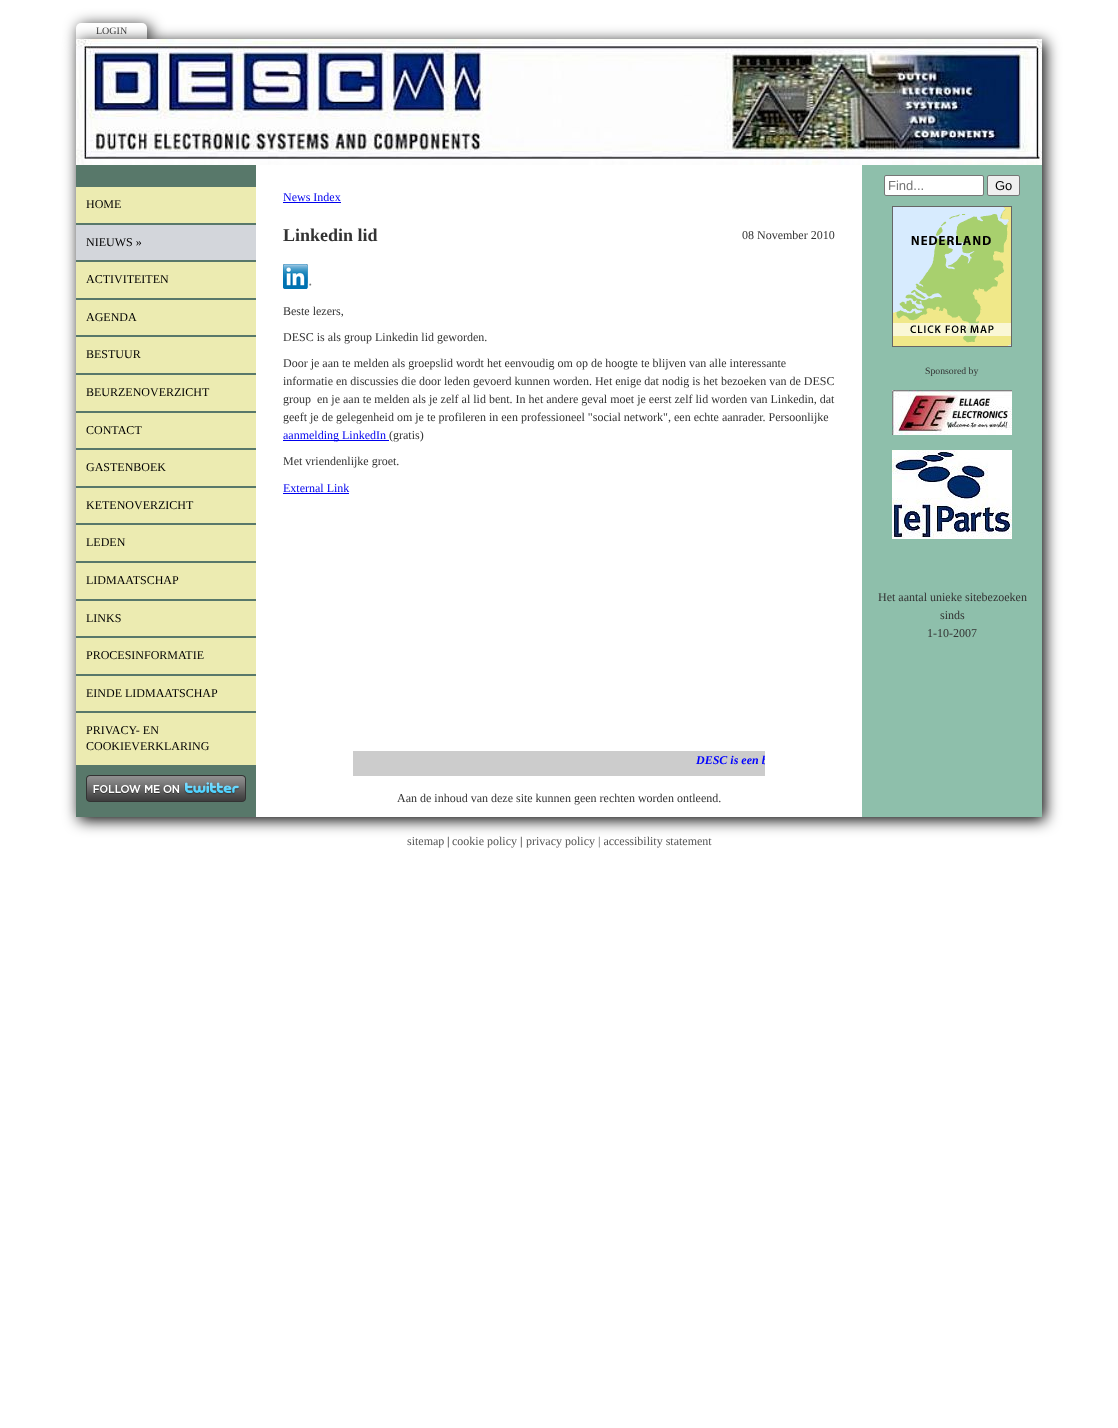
async function draw(canvas) {
  canvas.width = 1118
  canvas.height = 1428
  const ctx = canvas.getContext('2d')
  ctx.miterLimit = 4
  ctx.fontKerning = 'normal'
  async function loadImage(src) {
    const img = new Image()
    img.src = src
    await img.decode()
    return img
  }

  ctx.fillStyle = '#fff'
  ctx.fillRect(0, 0, 1118, 1428)
  ctx.fillStyle = '#000'
  ctx.filter = 'blur(7.5px)'
  ctx.beginPath()
  ctx.roundRect(79, 26, 71, 16, 5)
  ctx.fill()
  ctx.filter = 'none'
  ctx.fillStyle = '#fff'
  ctx.beginPath()
  ctx.roundRect(76, 23, 71, 16, [5, 5, 0, 0])
  ctx.fill()
  ctx.font = '10px Liberation Serif'
  ctx.fillStyle = '#444'
  ctx.fillText('LOGIN', 96, 34)
  ctx.fillStyle = '#000'
  ctx.filter = 'blur(7.5px)'
  ctx.beginPath()
  ctx.rect(79, 42, 966, 778)
  ctx.fill()
  ctx.filter = 'none'
  ctx.fillStyle = '#fff'
  ctx.fillRect(256, 165, 606, 652)
  ctx.drawImage(await loadImage('image0.png'), 76, 39, 966, 126)
  ctx.fillStyle = '#58786a'
  ctx.fillRect(76, 165, 180, 652)
  ctx.fillStyle = '#ecebb1'
  ctx.fillRect(76, 187, 180, 36)
  ctx.font = '12px Liberation Serif'
  ctx.fillStyle = '#000'
  ctx.fillText('HOME', 86, 208)
  ctx.fillStyle = '#d3d6db'
  ctx.fillRect(76, 225, 180, 35)
  ctx.fillStyle = '#000'
  ctx.fillText('NIEUWS »', 86, 246)
  ctx.fillStyle = '#ecebb1'
  ctx.fillRect(76, 262, 180, 36)
  ctx.fillStyle = '#000'
  ctx.fillText('ACTIVITEITEN', 86, 283)
  ctx.fillStyle = '#ecebb1'
  ctx.fillRect(76, 300, 180, 35)
  ctx.fillStyle = '#000'
  ctx.fillText('AGENDA', 86, 321)
  ctx.fillStyle = '#ecebb1'
  ctx.fillRect(76, 337, 180, 36)
  ctx.fillStyle = '#000'
  ctx.fillText('BESTUUR', 86, 358)
  ctx.fillStyle = '#ecebb1'
  ctx.fillRect(76, 375, 180, 36)
  ctx.fillStyle = '#000'
  ctx.fillText('BEURZENOVERZICHT', 86, 396)
  ctx.fillStyle = '#ecebb1'
  ctx.fillRect(76, 413, 180, 35)
  ctx.fillStyle = '#000'
  ctx.fillText('CONTACT', 86, 434)
  ctx.fillStyle = '#ecebb1'
  ctx.fillRect(76, 450, 180, 36)
  ctx.fillStyle = '#000'
  ctx.fillText('GASTENBOEK', 86, 471)
  ctx.fillStyle = '#ecebb1'
  ctx.fillRect(76, 488, 180, 35)
  ctx.fillStyle = '#000'
  ctx.fillText('KETENOVERZICHT', 86, 509)
  ctx.fillStyle = '#ecebb1'
  ctx.fillRect(76, 525, 180, 36)
  ctx.fillStyle = '#000'
  ctx.fillText('LEDEN', 86, 546)
  ctx.fillStyle = '#ecebb1'
  ctx.fillRect(76, 563, 180, 36)
  ctx.fillStyle = '#000'
  ctx.fillText('LIDMAATSCHAP', 86, 584)
  ctx.fillStyle = '#ecebb1'
  ctx.fillRect(76, 601, 180, 35)
  ctx.fillStyle = '#000'
  ctx.fillText('LINKS', 86, 622)
  ctx.fillStyle = '#ecebb1'
  ctx.fillRect(76, 638, 180, 36)
  ctx.fillStyle = '#000'
  ctx.fillText('PROCESINFORMATIE', 86, 659)
  ctx.fillStyle = '#ecebb1'
  ctx.fillRect(76, 676, 180, 35)
  ctx.fillStyle = '#000'
  ctx.fillText('EINDE LIDMAATSCHAP', 86, 697)
  ctx.fillStyle = '#ecebb1'
  ctx.fillRect(76, 713, 180, 52)
  ctx.fillStyle = '#000'
  ctx.fillText('PRIVACY- EN', 86, 734)
  ctx.fillText('COOKIEVERKLARING', 86, 750)
  ctx.drawImage(await loadImage('image1.png'), 86, 775, 160, 27)
  ctx.fillStyle = '#00e'
  ctx.fillText('News Index', 283, 201)
  ctx.fillRect(283, 202, 58, 1)
  ctx.font = 'bold 18px Liberation Serif'
  ctx.fillStyle = '#333'
  ctx.fillText('Linkedin lid', 283, 241)
  ctx.font = '12px Liberation Serif'
  ctx.fillText('08 November 2010', 742, 239)
  ctx.drawImage(await loadImage('image2.png'), 283, 264, 29, 25)
  ctx.fillText('Beste lezers,', 283, 315)
  ctx.fillText('DESC is als group Linkedin lid geworden.', 283, 341)
  ctx.fillText('Door je aan te melden als groepslid wordt het eenvoudig om op de hoogte te blijven van alle interessante', 283, 367)
  ctx.fillText('informatie en discussies die door leden gevoerd kunnen worden. Het enige dat nodig is het bezoeken van de DESC', 283, 385)
  ctx.fillText('group  en je aan te melden als je zelf al lid bent. In het andere geval moet je eerst zelf lid worden van Linkedin, dat', 283, 403)
  ctx.fillText('geeft je de gelegenheid om je te profileren in een professioneel "social network", een echte aanrader. Persoonlijke', 283, 421)
  ctx.fillStyle = '#00e'
  ctx.fillRect(283, 440, 106, 1)
  ctx.fillText('aanmelding LinkedIn', 283, 439)
  ctx.fillStyle = '#333'
  ctx.fillText('(gratis)', 389, 439)
  ctx.fillText('Met vriendenlijke groet.', 283, 465)
  ctx.fillStyle = '#00e'
  ctx.fillText('External Link', 283, 492)
  ctx.fillRect(283, 493, 66, 1)
  ctx.fillStyle = '#ccc'
  ctx.fillRect(353, 751, 412, 25)
  ctx.save()
  ctx.beginPath()
  ctx.rect(353, 751, 412, 25)
  ctx.clip()
  ctx.font = 'italic bold 12px Liberation Serif'
  ctx.fillStyle = '#00f'
  ctx.fillText('DESC is een b', 696, 764)
  ctx.restore()
  ctx.fillStyle = '#333'
  ctx.fillText('Aan de inhoud van deze site kunnen geen rechten worden ontleend.', 397, 802)
  ctx.fillStyle = '#8ebfab'
  ctx.fillRect(862, 165, 180, 652)
  ctx.fillStyle = '#fff'
  ctx.beginPath()
  ctx.roundRect(884.5, 175.5, 99, 20, 1.5)
  ctx.fill()
  ctx.strokeStyle = '#767676'
  ctx.stroke()
  ctx.font = '13px Liberation Sans'
  ctx.fillStyle = '#757575'
  ctx.fillText('Find...', 888, 190)
  ctx.fillStyle = '#efefef'
  ctx.beginPath()
  ctx.roundRect(987.5, 175.5, 32, 20, 1.5)
  ctx.fill()
  ctx.stroke()
  ctx.fillStyle = '#000'
  ctx.fillText('Go', 995, 190)
  ctx.drawImage(await loadImage('image3.png'), 892, 206, 120, 141)
  ctx.font = '9.75px Liberation Serif'
  ctx.fillStyle = '#333'
  ctx.fillText('Sponsored by', 925, 374)
  ctx.drawImage(await loadImage('image4.png'), 892, 390, 120, 45)
  ctx.drawImage(await loadImage('image5.png'), 892, 450, 120, 89)
  ctx.font = '12px Liberation Serif'
  ctx.fillText('Het aantal unieke sitebezoeken', 878, 601)
  ctx.fillText('sinds', 940, 619)
  ctx.fillText('1-10-2007', 927, 637)
  ctx.fillStyle = '#555'
  ctx.fillText('sitemap', 407, 845)
  ctx.fillStyle = '#000'
  ctx.fillText('|', 447, 845)
  ctx.fillStyle = '#555'
  ctx.fillText('cookie policy', 452, 845)
  ctx.fillStyle = '#000'
  ctx.fillText('|', 520, 845)
  ctx.fillStyle = '#555'
  ctx.fillText('privacy policy | accessibility statement', 526, 845)
}

draw(document.querySelector('canvas'))
